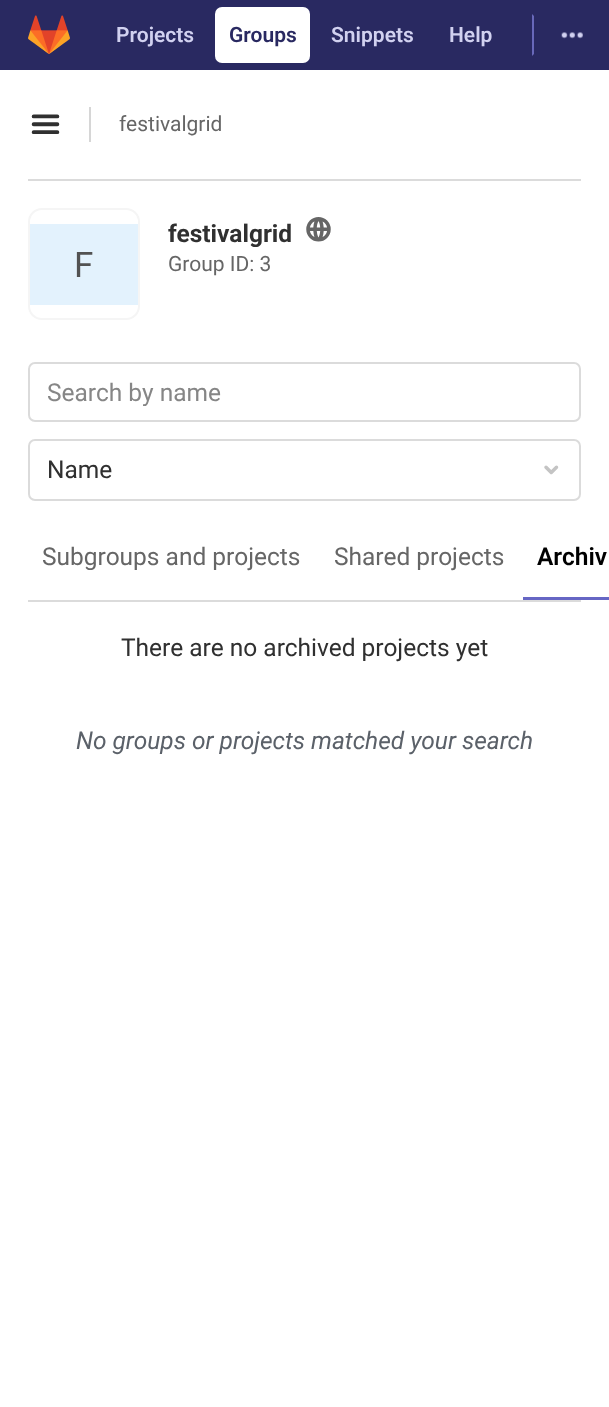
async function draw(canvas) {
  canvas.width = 609
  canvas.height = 1407
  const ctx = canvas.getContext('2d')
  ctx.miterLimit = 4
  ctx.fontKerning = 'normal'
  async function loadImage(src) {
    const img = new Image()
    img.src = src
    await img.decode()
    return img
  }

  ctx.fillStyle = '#fff'
  ctx.fillRect(0, 0, 609, 1407)
  ctx.fillStyle = '#292961'
  ctx.fillRect(0, 0, 609, 70)
  ctx.drawImage(await loadImage('image0.png'), 28, 15, 42, 39)
  ctx.font = '600 21px Roboto'
  ctx.fillStyle = '#d1d1f0'
  ctx.fillText('Projects', 116, 42)
  ctx.fillStyle = '#fff'
  ctx.beginPath()
  ctx.roundRect(215, 7, 95, 56, 7)
  ctx.fill()
  ctx.fillStyle = '#292961'
  ctx.fillText('Groups', 229, 42)
  ctx.fillStyle = '#d1d1f0'
  ctx.fillText('Snippets', 331, 42)
  ctx.fillText('Help', 449, 42)
  ctx.fillStyle = '#6868b9'
  ctx.beginPath()
  ctx.moveTo(532, 56)
  ctx.lineTo(532, 14)
  ctx.lineTo(534, 16)
  ctx.lineTo(534, 54)
  ctx.closePath()
  ctx.fill()
  ctx.drawImage(await loadImage('image1.png'), 561, 32, 22, 7)
  ctx.fillStyle = '#dbdbdb'
  ctx.fillRect(28, 179, 553, 2)
  ctx.drawImage(await loadImage('image2.png'), 31, 114, 29, 20)
  ctx.fillStyle = '#d6d6d6'
  ctx.fillRect(89, 107, 2, 35)
  ctx.font = '21px Roboto'
  ctx.fillStyle = '#666'
  ctx.fillText('festivalgrid', 119, 131)
  ctx.beginPath()
  ctx.roundRect(29, 209, 110, 110, 13)
  ctx.strokeStyle = '#f5f5f5'
  ctx.lineWidth = 2
  ctx.stroke()
  ctx.fillStyle = '#e3f2fd'
  ctx.fillRect(30, 224, 108, 81)
  ctx.font = '35px Roboto'
  ctx.fillStyle = '#525252'
  ctx.fillText('F', 74, 277)
  ctx.font = 'bold 24.5px Roboto'
  ctx.fillStyle = '#303030'
  ctx.fillText('festivalgrid', 168, 242)
  ctx.drawImage(await loadImage('image3.png'), 306, 217, 25, 25)
  ctx.font = '21px Roboto'
  ctx.fillStyle = '#666'
  ctx.fillText('Group ID: 3', 168, 271)
  ctx.fillStyle = '#dbdbdb'
  ctx.fillRect(28, 600, 553, 2)
  ctx.beginPath()
  ctx.roundRect(29, 363, 551, 58, 6)
  ctx.strokeStyle = '#dbdbdb'
  ctx.stroke()
  ctx.save()
  ctx.beginPath()
  ctx.rect(47, 378, 508, 28)
  ctx.clip()
  ctx.font = '24.5px Roboto'
  ctx.fillStyle = '#868686'
  ctx.fillText('Search by name', 47, 401)
  ctx.restore()
  ctx.beginPath()
  ctx.roundRect(29, 440, 551, 60, 6)
  ctx.stroke()
  ctx.font = '24.5px Roboto'
  ctx.fillStyle = '#303030'
  ctx.fillText('Name', 47, 478)
  ctx.drawImage(await loadImage('image4.png'), 544, 465, 15, 10)
  ctx.fillStyle = '#666'
  ctx.fillText('Subgroups and projects', 42, 565)
  ctx.fillText('Shared projects', 334, 565)
  ctx.fillStyle = '#6666c4'
  ctx.fillRect(523, 597, 86, 3)
  ctx.font = '600 24.5px Roboto'
  ctx.fillStyle = '#000'
  ctx.fillText('Archiv', 537, 565)
  ctx.font = '24.5px Roboto'
  ctx.fillStyle = '#303030'
  ctx.fillText('There are no archived projects yet', 121, 656)
  ctx.font = 'italic 24.5px Roboto'
  ctx.fillStyle = '#5b6169'
  ctx.fillText('No groups or projects matched your search', 76, 749)
}

draw(document.querySelector('canvas'))
